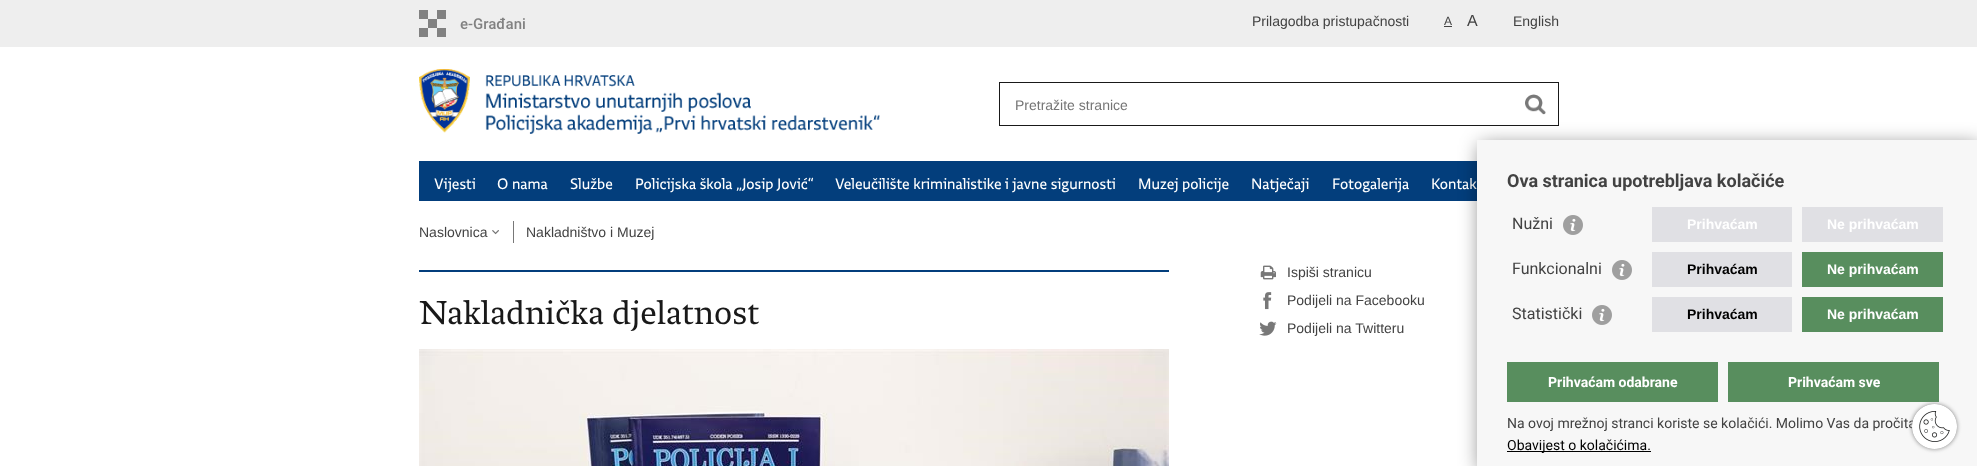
async function draw(canvas) {
  canvas.width = 1977
  canvas.height = 466
  const ctx = canvas.getContext('2d')
  ctx.miterLimit = 4
  ctx.fontKerning = 'normal'
  async function loadImage(src) {
    const img = new Image()
    img.src = src
    await img.decode()
    return img
  }

  ctx.fillStyle = '#fff'
  ctx.fillRect(0, 0, 1977, 466)
  ctx.fillStyle = '#eee'
  ctx.fillRect(0, 0, 1977, 47)
  ctx.drawImage(await loadImage('image0.png'), 419, 10, 106, 27)
  ctx.font = '14px Liberation Sans'
  ctx.fillStyle = '#424242'
  ctx.fillText('Prilagodba pristupačnosti', 1252, 26)
  ctx.font = '12px Liberation Sans'
  ctx.fillText('A', 1444, 25)
  ctx.fillRect(1444, 26, 8, 1)
  ctx.font = '16px Liberation Sans'
  ctx.fillText('A', 1467, 26)
  ctx.font = '14px Liberation Sans'
  ctx.fillText('English', 1513, 26)
  ctx.drawImage(await loadImage('image1.png'), 419, 69, 461, 65)
  ctx.strokeStyle = '#191919'
  ctx.strokeRect(999.5, 82.5, 559, 43)
  ctx.fillStyle = '#757575'
  ctx.fillText('Pretražite stranice', 1015, 110)
  ctx.drawImage(await loadImage('image2.png'), 1525, 94, 21, 21)
  ctx.fillStyle = '#033e7c'
  ctx.fillRect(419, 161, 1058, 40)
  ctx.font = '16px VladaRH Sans'
  ctx.fillStyle = '#fff'
  ctx.fillText('Vijesti', 434, 189)
  ctx.fillText('O nama', 497, 189)
  ctx.fillText('Službe', 570, 189)
  ctx.fillText('Policijska škola „Josip Jović“', 635, 189)
  ctx.fillText('Veleučilište kriminalistike i javne sigurnosti', 835, 189)
  ctx.fillText('Muzej policije', 1138, 189)
  ctx.fillText('Natječaji', 1251, 189)
  ctx.fillText('Fotogalerija', 1332, 189)
  ctx.fillText('Kontak', 1431, 189)
  ctx.font = '14px Liberation Sans'
  ctx.fillStyle = '#424242'
  ctx.fillText('Naslovnica', 419, 237)
  ctx.drawImage(await loadImage('image3.png'), 492, 230, 7, 5)
  ctx.fillStyle = '#787878'
  ctx.fillRect(513, 221, 1, 22)
  ctx.fillStyle = '#424242'
  ctx.fillText('Nakladništvo i Muzej', 526, 237)
  ctx.fillStyle = '#00000080'
  ctx.filter = 'blur(10px)'
  ctx.beginPath()
  ctx.rect(1480, 145, 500, 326)
  ctx.fill()
  ctx.filter = 'none'
  ctx.fillStyle = '#f7f7f7'
  ctx.fillRect(1477, 140, 500, 326)
  ctx.font = 'bold 18px Roboto'
  ctx.fillStyle = '#424242'
  ctx.fillText('Ova stranica upotrebljava kolačiće', 1507, 187)
  ctx.font = '16px Roboto'
  ctx.fillText('Nužni', 1512, 229)
  ctx.drawImage(await loadImage('image4.png'), 1563, 215, 20, 20)
  ctx.fillStyle = '#e0e0e4'
  ctx.fillRect(1652, 207, 140, 35)
  ctx.font = 'bold 14px Liberation Sans'
  ctx.fillStyle = '#fff'
  ctx.fillText('Prihvaćam', 1687, 229)
  ctx.fillStyle = '#e0e0e4'
  ctx.fillRect(1802, 207, 141, 35)
  ctx.fillStyle = '#fff'
  ctx.fillText('Ne prihvaćam', 1827, 229)
  ctx.font = '16px Roboto'
  ctx.fillStyle = '#424242'
  ctx.fillText('Funkcionalni', 1512, 274)
  ctx.drawImage(await loadImage('image4.png'), 1612, 260, 20, 20)
  ctx.fillStyle = '#e0e0e4'
  ctx.fillRect(1652, 252, 140, 35)
  ctx.font = 'bold 14px Liberation Sans'
  ctx.fillStyle = '#000'
  ctx.fillText('Prihvaćam', 1687, 274)
  ctx.fillStyle = '#588e5e'
  ctx.fillRect(1802, 252, 141, 35)
  ctx.fillStyle = '#fff'
  ctx.fillText('Ne prihvaćam', 1827, 274)
  ctx.font = '16px Roboto'
  ctx.fillStyle = '#424242'
  ctx.fillText('Statistički', 1512, 319)
  ctx.drawImage(await loadImage('image4.png'), 1592, 305, 20, 20)
  ctx.fillStyle = '#e0e0e4'
  ctx.fillRect(1652, 297, 140, 35)
  ctx.font = 'bold 14px Liberation Sans'
  ctx.fillStyle = '#000'
  ctx.fillText('Prihvaćam', 1687, 319)
  ctx.fillStyle = '#588e5e'
  ctx.fillRect(1802, 297, 141, 35)
  ctx.fillStyle = '#fff'
  ctx.fillText('Ne prihvaćam', 1827, 319)
  ctx.fillStyle = '#588e5e'
  ctx.fillRect(1507, 362, 211, 40)
  ctx.font = 'bold 14px Roboto'
  ctx.fillStyle = '#fff'
  ctx.fillText('Prihvaćam odabrane', 1548, 387)
  ctx.fillStyle = '#588e5e'
  ctx.fillRect(1728, 362, 211, 40)
  ctx.fillStyle = '#fff'
  ctx.fillText('Prihvaćam sve', 1788, 387)
  ctx.font = '14px Roboto'
  ctx.fillStyle = '#424242'
  ctx.fillText('Na ovoj mrežnoj stranci koriste se kolačići. Molimo Vas da pročita', 1507, 428)
  ctx.fillStyle = '#000'
  ctx.fillRect(1507, 451, 144, 1)
  ctx.fillText('Obavijest o kolačićima.', 1507, 450)
  ctx.fillStyle = '#033e7c'
  ctx.fillRect(419, 270, 750, 2)
  ctx.font = '35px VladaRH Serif'
  ctx.fillStyle = '#191919'
  ctx.fillText('Nakladnička djelatnost', 419, 324)
  ctx.drawImage(await loadImage('image5.png'), 419, 349, 750, 117)
  ctx.drawImage(await loadImage('image6.png'), 1260, 265, 16, 15)
  ctx.font = '14px Liberation Sans'
  ctx.fillStyle = '#424242'
  ctx.fillText('Ispiši stranicu', 1287, 277)
  ctx.drawImage(await loadImage('image7.png'), 1263, 292, 9, 18)
  ctx.fillText('Podijeli na Facebooku', 1287, 305)
  ctx.drawImage(await loadImage('image8.png'), 1259, 321, 18, 15)
  ctx.fillText('Podijeli na Twitteru', 1287, 333)
  ctx.fillStyle = '#858585'
  ctx.filter = 'blur(2px)'
  ctx.beginPath()
  ctx.roundRect(1912, 404, 45, 45, 22.5)
  ctx.fill()
  ctx.filter = 'none'
  ctx.drawImage(await loadImage('image9.png'), 1912, 404, 45, 45)
}

draw(document.querySelector('canvas'))
